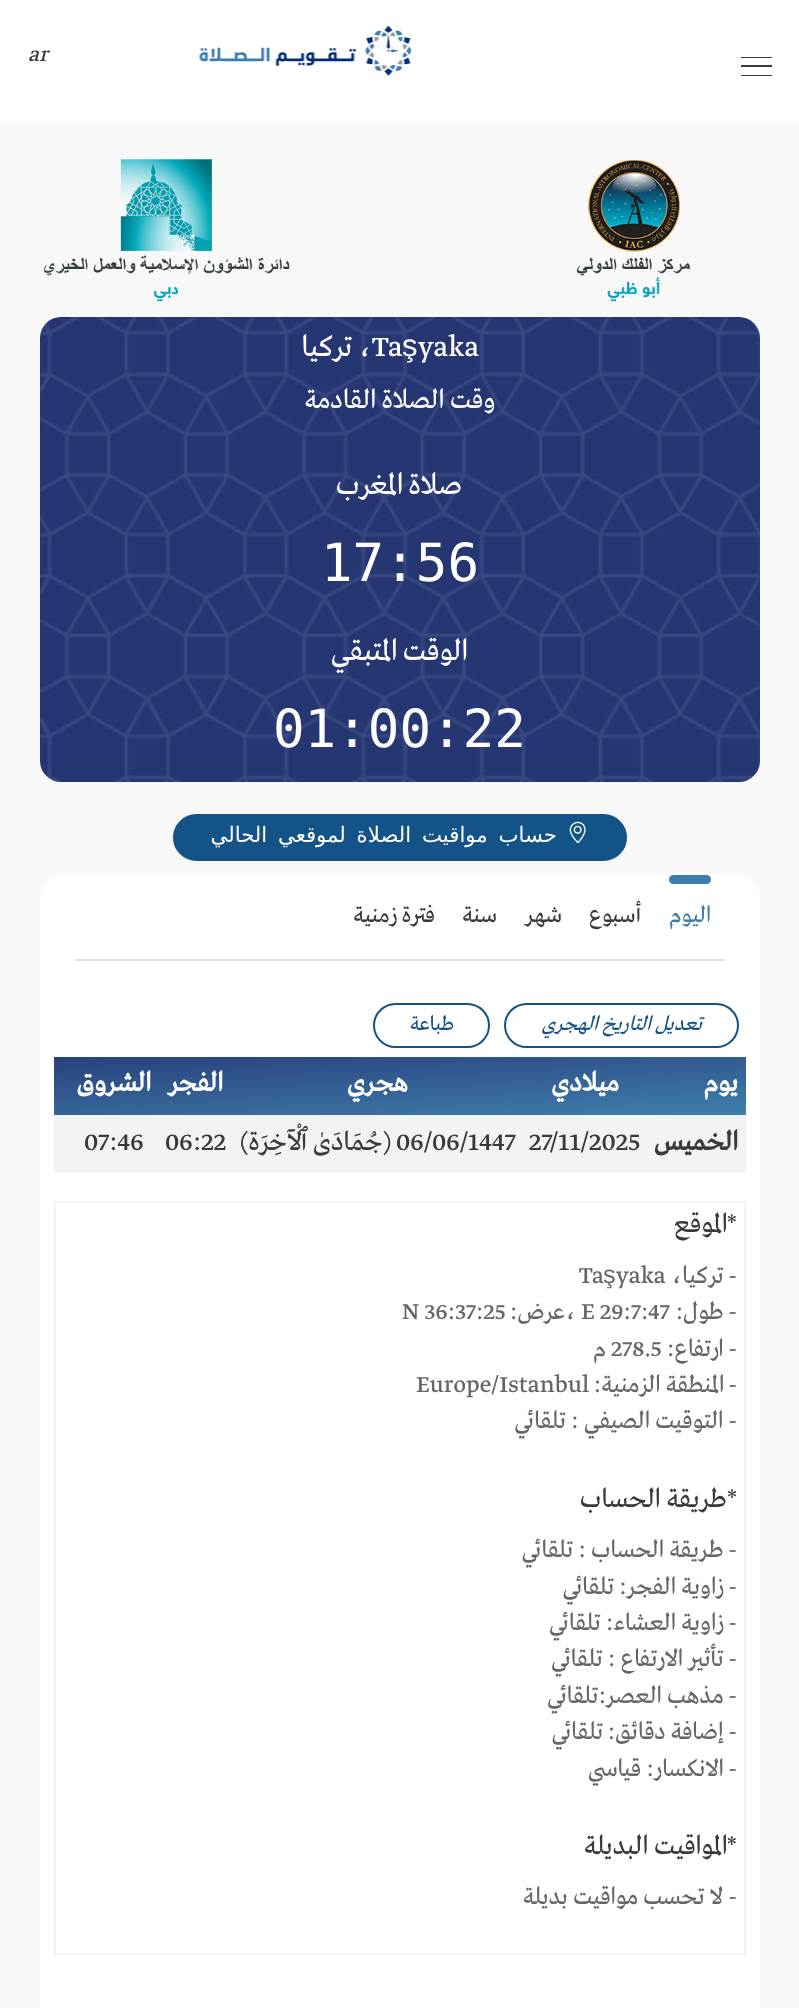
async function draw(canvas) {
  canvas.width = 799
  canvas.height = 2008
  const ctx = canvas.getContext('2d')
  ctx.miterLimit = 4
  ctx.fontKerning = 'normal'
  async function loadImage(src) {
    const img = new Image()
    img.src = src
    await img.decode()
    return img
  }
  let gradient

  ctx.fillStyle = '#f8f8f8'
  ctx.fillRect(0, 0, 799, 2008)
  ctx.fillStyle = '#fff'
  ctx.fillRect(0, 0, 799, 123)
  ctx.fillStyle = '#3a3a3a'
  ctx.fillRect(741, 57, 31, 1)
  ctx.fillRect(741, 65, 31, 2)
  ctx.fillRect(741, 75, 31, 1)
  ctx.drawImage(await loadImage('image0.png'), 199, 25, 213, 51)
  ctx.font = 'italic 23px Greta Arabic'
  ctx.fillText('ar', 28, 61)
  ctx.drawImage(await loadImage('image1.png'), 576, 160, 115, 142)
  ctx.drawImage(await loadImage('image2.png'), 43, 159, 247, 143)
  ctx.fillStyle = '#253673'
  ctx.beginPath()
  ctx.roundRect(40, 317, 720, 465, 21)
  ctx.fill()
  ctx.drawImage(await loadImage('image3.png'), 40, 317, 720, 465)
  ctx.font = '31px Greta Arabic'
  ctx.fillStyle = '#fff'
  ctx.fillText('yaka', 418, 356)
  ctx.font = '31px Liberation Sans'
  ctx.fillText('ş', 402, 356)
  ctx.font = '31px Greta Arabic'
  ctx.fillText('Ta', 372, 356)
  ctx.direction = 'rtl'
  ctx.fillText('، تركيا', 372, 356)
  ctx.font = '28px Greta Arabic'
  ctx.fillText('وقت الصلاة القادمة', 495, 408)
  ctx.font = '31px Greta Arabic'
  ctx.fillText('صلاة المغرب', 462, 494)
  ctx.direction = 'ltr'
  ctx.font = '52.5px DejaVu Sans Mono'
  ctx.fillText('17:56', 321, 581)
  ctx.direction = 'rtl'
  ctx.font = '31px Greta Arabic'
  ctx.fillText('الوقت المتبقي', 468, 660)
  ctx.direction = 'ltr'
  ctx.font = '52.5px DejaVu Sans Mono'
  ctx.fillText('01:00:22', 273, 747)
  ctx.fillStyle = '#145388'
  ctx.beginPath()
  ctx.roundRect(174, 815, 452, 45, 22.5)
  ctx.fill()
  ctx.strokeStyle = '#145388'
  ctx.lineWidth = 2
  ctx.stroke()
  ctx.drawImage(await loadImage('image4.png'), 569, 821, 17, 22)
  ctx.wordSpacing = '4px'
  ctx.direction = 'rtl'
  ctx.font = '21.25px DejaVu Sans'
  ctx.fillStyle = '#fff'
  ctx.fillText('حساب مواقيت الصلاة لموقعي الحالي', 557, 842)
  ctx.beginPath()
  ctx.roundRect(40, 875, 720, 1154, 21)
  ctx.fill()
  ctx.fillStyle = '#dee2e6'
  ctx.fillRect(75, 959, 650, 2)
  ctx.fillStyle = '#3d7dad'
  ctx.beginPath()
  ctx.roundRect(669, 875, 42, 9, 4.5)
  ctx.fill()
  ctx.wordSpacing = '0px'
  ctx.font = '24px Greta Arabic'
  ctx.fillText('اليوم', 711, 922)
  ctx.fillStyle = '#3a3a3a'
  ctx.fillText('أسبوع', 641, 922)
  ctx.fillText('شهر', 562, 922)
  ctx.fillText('سنة', 497, 922)
  ctx.fillText('فترة زمنية', 435, 922)
  ctx.beginPath()
  ctx.roundRect(505, 1004, 233, 43, 21.5)
  ctx.stroke()
  ctx.font = 'italic 21.25px Greta Arabic'
  ctx.fillStyle = '#145388'
  ctx.fillText('تعديل التاريخ الهجري', 702, 1030)
  ctx.beginPath()
  ctx.roundRect(374, 1004, 115, 43, 21.5)
  ctx.stroke()
  ctx.font = '21.25px Greta Arabic'
  ctx.fillText('طباعة', 454, 1030)
  gradient = ctx.createLinearGradient(252, 1028, 259, 1143)
  gradient.addColorStop(0, '#253673')
  gradient.addColorStop(1, '#3e7eae')
  ctx.fillStyle = gradient
  ctx.fillRect(54, 1057, 692, 58)
  ctx.font = 'bold 28px Greta Arabic'
  ctx.fillStyle = '#fff'
  ctx.fillText('يوم', 738, 1091)
  ctx.fillText('ميلادي', 619, 1091)
  ctx.fillText('هجري', 408, 1091)
  ctx.fillText('الفجر', 223, 1091)
  ctx.fillText('الشروق', 151, 1091)
  ctx.fillStyle = '#f3f3f3'
  ctx.fillRect(54, 1115, 692, 58)
  ctx.fillStyle = '#3a3a3a'
  ctx.fillText('الخميس', 738, 1150)
  ctx.direction = 'ltr'
  ctx.font = '28px Greta Arabic'
  ctx.fillText('27/11/2025', 529, 1150)
  ctx.fillText('06/06/1447', 396, 1150)
  ctx.direction = 'rtl'
  ctx.fillText('(جُمَادَىٰ ٱلْآخِرَة)', 390, 1150)
  ctx.direction = 'ltr'
  ctx.fillText('06:22', 165, 1150)
  ctx.fillText('07:46', 84, 1150)
  ctx.strokeStyle = '#f3f3f3'
  ctx.strokeRect(55, 1202, 690, 752)
  ctx.direction = 'rtl'
  ctx.fillText('*الموقع', 737, 1232)
  ctx.font = '25.25px Greta Arabic'
  ctx.fillStyle = '#666'
  ctx.fillText('- تركيا،', 737, 1283)
  ctx.direction = 'ltr'
  ctx.font = '25.25px Liberation Sans'
  ctx.fillText('ş', 603, 1283)
  ctx.font = '25.25px Greta Arabic'
  ctx.fillText('yaka', 616, 1283)
  ctx.fillText('Ta', 579, 1283)
  ctx.direction = 'rtl'
  ctx.fillText('- طول:', 737, 1319)
  ctx.direction = 'ltr'
  ctx.fillText('E 29:7:47', 581, 1319)
  ctx.fillText('،', 565, 1319)
  ctx.direction = 'rtl'
  ctx.fillText('عرض:', 565, 1319)
  ctx.direction = 'ltr'
  ctx.fillText('N 36:37:25', 402, 1319)
  ctx.direction = 'rtl'
  ctx.fillText('- ارتفاع:', 737, 1356)
  ctx.direction = 'ltr'
  ctx.fillText('278.5', 611, 1356)
  ctx.direction = 'rtl'
  ctx.fillText('م', 606, 1356)
  ctx.fillText('- المنطقة الزمنية:', 737, 1392)
  ctx.direction = 'ltr'
  ctx.fillText('Europe/Istanbul', 416, 1392)
  ctx.direction = 'rtl'
  ctx.fillText('- التوقيت الصيفي : تلقائي', 737, 1428)
  ctx.font = '28px Greta Arabic'
  ctx.fillStyle = '#3a3a3a'
  ctx.fillText('*طريقة الحساب', 737, 1507)
  ctx.font = '25.25px Greta Arabic'
  ctx.fillStyle = '#666'
  ctx.fillText('- طريقة الحساب : تلقائي', 737, 1557)
  ctx.fillText('- زاوية الفجر: تلقائي', 737, 1594)
  ctx.fillText('- زاوية العشاء: تلقائي', 737, 1630)
  ctx.fillText('- تأثير الارتفاع : تلقائي', 737, 1666)
  ctx.fillText('- مذهب العصر:تلقائي', 737, 1703)
  ctx.fillText('- إضافة دقائق:', 737, 1739)
  ctx.fillText('تلقائي', 603, 1739)
  ctx.fillText('- الانكسار:', 737, 1776)
  ctx.fillText('قياسي', 641, 1776)
  ctx.font = '28px Greta Arabic'
  ctx.fillStyle = '#3a3a3a'
  ctx.fillText('*المواقيت البديلة', 737, 1854)
  ctx.font = '25.25px Greta Arabic'
  ctx.fillStyle = '#666'
  ctx.fillText('- لا تحسب مواقيت بديلة', 737, 1904)
}

draw(document.querySelector('canvas'))
